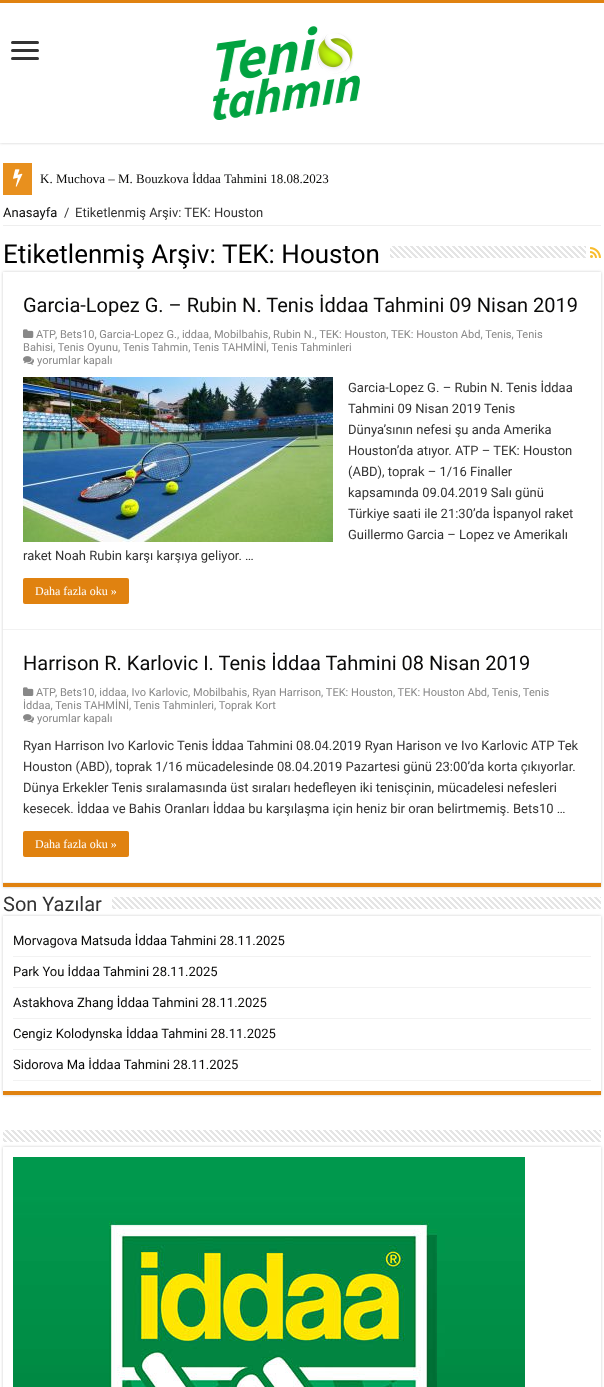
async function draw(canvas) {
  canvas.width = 604
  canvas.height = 1387
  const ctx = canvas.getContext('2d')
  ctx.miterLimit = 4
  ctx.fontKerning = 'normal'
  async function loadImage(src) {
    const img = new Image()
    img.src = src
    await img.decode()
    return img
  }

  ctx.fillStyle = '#fff'
  ctx.fillRect(0, 0, 604, 1387)
  ctx.save()
  ctx.beginPath()
  ctx.rect(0, 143, 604, 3)
  ctx.clip()
  ctx.fillStyle = '#cacaca'
  ctx.filter = 'blur(1.5px)'
  ctx.beginPath()
  ctx.rect(0, 0, 604, 143)
  ctx.fill()
  ctx.filter = 'none'
  ctx.restore()
  ctx.fillStyle = '#e08210'
  ctx.fillRect(0, 0, 604, 3)
  ctx.fillStyle = '#333'
  ctx.beginPath()
  ctx.roundRect(11, 41, 28, 3, 1.5)
  ctx.fill()
  ctx.beginPath()
  ctx.roundRect(11, 49, 28, 3, 1.5)
  ctx.fill()
  ctx.beginPath()
  ctx.roundRect(11, 57, 28, 3, 1.5)
  ctx.fill()
  ctx.drawImage(await loadImage('image0.png'), 213, 26, 147, 94)
  ctx.fillStyle = '#e8901e'
  ctx.fillRect(3, 163, 29, 32)
  ctx.drawImage(await loadImage('image1.png'), 13, 169, 10, 18)
  ctx.font = '13px Liberation Serif'
  ctx.fillStyle = '#0a0a09'
  ctx.fillText('K. Muchova – M. Bouzkova İddaa Tahmini 18.08.2023', 40, 183)
  ctx.fillStyle = '#eee'
  ctx.fillRect(3, 225, 598, 1)
  ctx.font = '13px Roboto'
  ctx.fillStyle = '#0a0a09'
  ctx.fillText('Anasayfa', 3, 217)
  ctx.fillStyle = '#333'
  ctx.fillText('/', 64, 217)
  ctx.fillText('Etiketlenmiş Arşiv: TEK: Houston', 75, 217)
  ctx.save()
  ctx.beginPath()
  ctx.moveTo(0, 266)
  ctx.lineTo(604, 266)
  ctx.lineTo(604, 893)
  ctx.lineTo(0, 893)
  ctx.closePath()
  ctx.moveTo(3, 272)
  ctx.lineTo(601, 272)
  ctx.lineTo(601, 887)
  ctx.lineTo(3, 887)
  ctx.closePath()
  ctx.clip('evenodd')
  ctx.fillStyle = '#cacaca'
  ctx.filter = 'blur(1.5px)'
  ctx.beginPath()
  ctx.rect(3, 272, 598, 615)
  ctx.fill()
  ctx.filter = 'none'
  ctx.restore()
  ctx.font = '26px Roboto'
  ctx.fillStyle = '#000'
  ctx.fillText('Etiketlenmiş Arşiv:', 3, 263)
  ctx.fillText('TEK: Houston', 222, 263)
  ctx.drawImage(await loadImage('image2.png'), 390, 246, 196, 12)
  ctx.drawImage(await loadImage('image3.png'), 590, 247, 11, 11)
  ctx.fillStyle = '#e08210'
  ctx.fillRect(3, 883, 598, 4)
  ctx.fillStyle = '#f2f2f2'
  ctx.fillRect(3, 629, 598, 1)
  ctx.font = '20px Roboto'
  ctx.fillStyle = '#0a0a09'
  ctx.fillText('Garcia-Lopez G. – Rubin N. Tenis İddaa Tahmini 09 Nisan 2019', 23, 312)
  ctx.drawImage(await loadImage('image4.png'), 23, 329, 11, 9)
  ctx.font = '11.05px Roboto'
  ctx.fillStyle = '#888'
  ctx.fillText('ATP', 36, 338)
  ctx.fillText(', Bets10, Garcia-Lopez G., iddaa, Mobilbahis, Rubin N., TEK: Houston, TEK: Houston Abd, Tenis, Tenis', 55, 338)
  ctx.fillText('Bahisi, Tenis Oyunu, Tenis Tahmin, Tenis TAHMİNİ, Tenis Tahminleri', 23, 351)
  ctx.drawImage(await loadImage('image5.png'), 23, 356, 11, 9)
  ctx.fillText('yorumlar kapalı', 37, 364)
  ctx.drawImage(await loadImage('image6.png'), 23, 377, 310, 165)
  ctx.font = '13px Roboto'
  ctx.fillStyle = '#333'
  ctx.fillText('Garcia-Lopez G. – Rubin N. Tenis İddaa', 348, 392)
  ctx.fillText('Tahmini 09 Nisan 2019 Tenis', 348, 413)
  ctx.fillText('Dünya’sının nefesi şu anda Amerika', 348, 434)
  ctx.fillText('Houston’da atıyor. ATP – TEK: Houston', 348, 455)
  ctx.fillText('(ABD), toprak – 1/16 Finaller', 348, 476)
  ctx.fillText('kapsamında 09.04.2019 Salı günü', 348, 497)
  ctx.fillText('Türkiye saati ile 21:30’da İspanyol raket', 348, 518)
  ctx.fillText('Guillermo Garcia – Lopez ve Amerikalı', 348, 539)
  ctx.fillText('raket Noah Rubin karşı karşıya geliyor. …', 23, 560)
  ctx.fillStyle = '#e08210'
  ctx.beginPath()
  ctx.roundRect(23, 578, 106, 26, 2)
  ctx.fill()
  ctx.font = '12px Liberation Serif'
  ctx.fillStyle = '#fff'
  ctx.fillText('Daha fazla oku »', 35, 595)
  ctx.fillStyle = '#f2f2f2'
  ctx.fillRect(3, 882, 598, 1)
  ctx.font = '20px Roboto'
  ctx.fillStyle = '#0a0a09'
  ctx.fillText('Harrison R. Karlovic I. Tenis İddaa Tahmini 08 Nisan 2019', 23, 670)
  ctx.drawImage(await loadImage('image4.png'), 23, 687, 11, 9)
  ctx.font = '11.05px Roboto'
  ctx.fillStyle = '#888'
  ctx.fillText('ATP', 36, 696)
  ctx.fillText(', Bets10, iddaa, Ivo Karlovic, Mobilbahis, Ryan Harrison, TEK: Houston, TEK: Houston Abd, Tenis, Tenis', 55, 696)
  ctx.fillText('İddaa, Tenis TAHMİNİ, Tenis Tahminleri, Toprak Kort', 23, 709)
  ctx.drawImage(await loadImage('image5.png'), 23, 714, 11, 9)
  ctx.fillText('yorumlar kapalı', 37, 722)
  ctx.font = '13px Roboto'
  ctx.fillStyle = '#333'
  ctx.fillText('Ryan Harrison Ivo Karlovic Tenis İddaa Tahmini 08.04.2019 Ryan Harison ve Ivo Karlovic ATP Tek', 23, 750)
  ctx.fillText('Houston (ABD), toprak 1/16 mücadelesinde 08.04.2019 Pazartesi günü 23:00’da korta çıkıyorlar.', 23, 771)
  ctx.fillText('Dünya Erkekler Tenis sıralamasında üst sıraları hedefleyen iki tenisçinin, mücadelesi nefesleri', 23, 792)
  ctx.fillText('kesecek. İddaa ve Bahis Oranları İddaa bu karşılaşma için heniz bir oran belirtmemiş. Bets10 …', 23, 813)
  ctx.fillStyle = '#e08210'
  ctx.beginPath()
  ctx.roundRect(23, 831, 106, 26, 2)
  ctx.fill()
  ctx.font = '12px Liberation Serif'
  ctx.fillStyle = '#fff'
  ctx.fillText('Daha fazla oku »', 35, 848)
  ctx.save()
  ctx.beginPath()
  ctx.moveTo(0, 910)
  ctx.lineTo(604, 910)
  ctx.lineTo(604, 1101)
  ctx.lineTo(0, 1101)
  ctx.closePath()
  ctx.moveTo(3, 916)
  ctx.lineTo(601, 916)
  ctx.lineTo(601, 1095)
  ctx.lineTo(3, 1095)
  ctx.closePath()
  ctx.clip('evenodd')
  ctx.fillStyle = '#cacaca'
  ctx.filter = 'blur(1.5px)'
  ctx.beginPath()
  ctx.rect(3, 916, 598, 179)
  ctx.fill()
  ctx.filter = 'none'
  ctx.restore()
  ctx.font = '20px Roboto'
  ctx.fillStyle = '#333'
  ctx.fillText('Son Yazılar', 3, 911)
  ctx.drawImage(await loadImage('image7.png'), 112, 897, 489, 12)
  ctx.fillStyle = '#e08210'
  ctx.fillRect(3, 1091, 598, 4)
  ctx.fillStyle = '#f2f2f2'
  ctx.fillRect(13, 956, 578, 1)
  ctx.font = '13px Roboto'
  ctx.fillStyle = '#0a0a09'
  ctx.fillText('Morvagova Matsuda İddaa Tahmini 28.11.2025', 13, 945)
  ctx.fillStyle = '#f2f2f2'
  ctx.fillRect(13, 987, 578, 1)
  ctx.fillStyle = '#0a0a09'
  ctx.fillText('Park You İddaa Tahmini 28.11.2025', 13, 976)
  ctx.fillStyle = '#f2f2f2'
  ctx.fillRect(13, 1018, 578, 1)
  ctx.fillStyle = '#0a0a09'
  ctx.fillText('Astakhova Zhang İddaa Tahmini 28.11.2025', 13, 1007)
  ctx.fillStyle = '#f2f2f2'
  ctx.fillRect(13, 1049, 578, 1)
  ctx.fillStyle = '#0a0a09'
  ctx.fillText('Cengiz Kolodynska İddaa Tahmini 28.11.2025', 13, 1038)
  ctx.fillStyle = '#f2f2f2'
  ctx.fillRect(13, 1080, 578, 1)
  ctx.fillStyle = '#0a0a09'
  ctx.fillText('Sidorova Ma İddaa Tahmini 28.11.2025', 13, 1069)
  ctx.save()
  ctx.beginPath()
  ctx.moveTo(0, 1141)
  ctx.lineTo(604, 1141)
  ctx.lineTo(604, 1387)
  ctx.lineTo(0, 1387)
  ctx.closePath()
  ctx.moveTo(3, 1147)
  ctx.lineTo(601, 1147)
  ctx.lineTo(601, 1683)
  ctx.lineTo(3, 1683)
  ctx.closePath()
  ctx.clip('evenodd')
  ctx.fillStyle = '#cacaca'
  ctx.filter = 'blur(1.5px)'
  ctx.beginPath()
  ctx.rect(3, 1147, 598, 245)
  ctx.fill()
  ctx.filter = 'none'
  ctx.restore()
  ctx.drawImage(await loadImage('image8.png'), 3, 1130, 598, 12)
  ctx.drawImage(await loadImage('image9.png'), 13, 1157, 512, 230)
}

draw(document.querySelector('canvas'))
